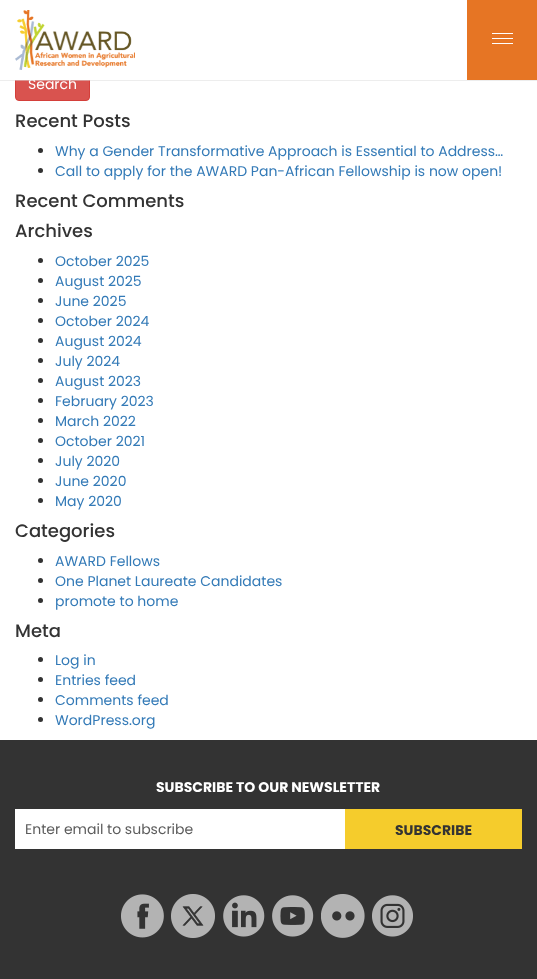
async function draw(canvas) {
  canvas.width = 537
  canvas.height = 979
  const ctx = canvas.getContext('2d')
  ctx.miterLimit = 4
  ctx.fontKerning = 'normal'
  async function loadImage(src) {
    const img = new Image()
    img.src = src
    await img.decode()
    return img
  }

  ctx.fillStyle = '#fff'
  ctx.fillRect(0, 0, 537, 979)
  ctx.fillStyle = '#d9534f'
  ctx.beginPath()
  ctx.roundRect(15.5, 67.5, 74, 33, 3.5)
  ctx.fill()
  ctx.strokeStyle = '#d43f3a'
  ctx.stroke()
  ctx.font = '14px Poppins'
  ctx.fillStyle = '#fff'
  ctx.fillText('Search', 28, 89)
  ctx.fillStyle = '#dbdbdb80'
  ctx.fillRect(0, 80, 537, 1)
  ctx.fillStyle = '#fff'
  ctx.fillRect(15, 67, 75, 13)
  ctx.drawImage(await loadImage('image0.png'), 15, 10, 120, 60)
  ctx.fillStyle = '#e67524'
  ctx.fillRect(467, 0, 70, 80)
  ctx.fillStyle = '#fff'
  ctx.fillRect(492, 33, 21, 1)
  ctx.fillRect(492, 38, 21, 1)
  ctx.fillRect(492, 43, 21, 1)
  ctx.font = '500 18px Poppins'
  ctx.fillStyle = '#333'
  ctx.fillText('Recent Posts', 15, 127)
  ctx.beginPath()
  ctx.arc(40.5, 150.5, 2.5, 0, 2 * Math.PI)
  ctx.fill()
  ctx.font = '14px Poppins'
  ctx.fillStyle = '#337ab7'
  ctx.fillText('Why a Gender Transformative Approach is Essential to Address…', 55, 156)
  ctx.fillStyle = '#333'
  ctx.beginPath()
  ctx.arc(40.5, 170.5, 2.5, 0, 2 * Math.PI)
  ctx.fill()
  ctx.fillStyle = '#337ab7'
  ctx.fillText('Call to apply for the AWARD Pan-African Fellowship is now open!', 55, 176)
  ctx.font = '500 18px Poppins'
  ctx.fillStyle = '#333'
  ctx.fillText('Recent Comments', 15, 207)
  ctx.fillText('Archives', 15, 237)
  ctx.beginPath()
  ctx.arc(40.5, 260.5, 2.5, 0, 2 * Math.PI)
  ctx.fill()
  ctx.font = '14px Poppins'
  ctx.fillStyle = '#337ab7'
  ctx.fillText('October 2025', 55, 266)
  ctx.fillStyle = '#333'
  ctx.beginPath()
  ctx.arc(40.5, 280.5, 2.5, 0, 2 * Math.PI)
  ctx.fill()
  ctx.fillStyle = '#337ab7'
  ctx.fillText('August 2025', 55, 286)
  ctx.fillStyle = '#333'
  ctx.beginPath()
  ctx.arc(40.5, 300.5, 2.5, 0, 2 * Math.PI)
  ctx.fill()
  ctx.fillStyle = '#337ab7'
  ctx.fillText('June 2025', 55, 306)
  ctx.fillStyle = '#333'
  ctx.beginPath()
  ctx.arc(40.5, 320.5, 2.5, 0, 2 * Math.PI)
  ctx.fill()
  ctx.fillStyle = '#337ab7'
  ctx.fillText('October 2024', 55, 326)
  ctx.fillStyle = '#333'
  ctx.beginPath()
  ctx.arc(40.5, 340.5, 2.5, 0, 2 * Math.PI)
  ctx.fill()
  ctx.fillStyle = '#337ab7'
  ctx.fillText('August 2024', 55, 346)
  ctx.fillStyle = '#333'
  ctx.beginPath()
  ctx.arc(40.5, 360.5, 2.5, 0, 2 * Math.PI)
  ctx.fill()
  ctx.fillStyle = '#337ab7'
  ctx.fillText('July 2024', 55, 366)
  ctx.fillStyle = '#333'
  ctx.beginPath()
  ctx.arc(40.5, 380.5, 2.5, 0, 2 * Math.PI)
  ctx.fill()
  ctx.fillStyle = '#337ab7'
  ctx.fillText('August 2023', 55, 386)
  ctx.fillStyle = '#333'
  ctx.beginPath()
  ctx.arc(40.5, 400.5, 2.5, 0, 2 * Math.PI)
  ctx.fill()
  ctx.fillStyle = '#337ab7'
  ctx.fillText('February 2023', 55, 406)
  ctx.fillStyle = '#333'
  ctx.beginPath()
  ctx.arc(40.5, 420.5, 2.5, 0, 2 * Math.PI)
  ctx.fill()
  ctx.fillStyle = '#337ab7'
  ctx.fillText('March 2022', 55, 426)
  ctx.fillStyle = '#333'
  ctx.beginPath()
  ctx.arc(40.5, 440.5, 2.5, 0, 2 * Math.PI)
  ctx.fill()
  ctx.fillStyle = '#337ab7'
  ctx.fillText('October 2021', 55, 446)
  ctx.fillStyle = '#333'
  ctx.beginPath()
  ctx.arc(40.5, 460.5, 2.5, 0, 2 * Math.PI)
  ctx.fill()
  ctx.fillStyle = '#337ab7'
  ctx.fillText('July 2020', 55, 466)
  ctx.fillStyle = '#333'
  ctx.beginPath()
  ctx.arc(40.5, 480.5, 2.5, 0, 2 * Math.PI)
  ctx.fill()
  ctx.fillStyle = '#337ab7'
  ctx.fillText('June 2020', 55, 486)
  ctx.fillStyle = '#333'
  ctx.beginPath()
  ctx.arc(40.5, 500.5, 2.5, 0, 2 * Math.PI)
  ctx.fill()
  ctx.fillStyle = '#337ab7'
  ctx.fillText('May 2020', 55, 506)
  ctx.font = '500 18px Poppins'
  ctx.fillStyle = '#333'
  ctx.fillText('Categories', 15, 537)
  ctx.beginPath()
  ctx.arc(40.5, 560.5, 2.5, 0, 2 * Math.PI)
  ctx.fill()
  ctx.font = '14px Poppins'
  ctx.fillStyle = '#337ab7'
  ctx.fillText('AWARD Fellows', 55, 566)
  ctx.fillStyle = '#333'
  ctx.beginPath()
  ctx.arc(40.5, 580.5, 2.5, 0, 2 * Math.PI)
  ctx.fill()
  ctx.fillStyle = '#337ab7'
  ctx.fillText('One Planet Laureate Candidates', 55, 586)
  ctx.fillStyle = '#333'
  ctx.beginPath()
  ctx.arc(40.5, 600.5, 2.5, 0, 2 * Math.PI)
  ctx.fill()
  ctx.fillStyle = '#337ab7'
  ctx.fillText('promote to home', 55, 606)
  ctx.font = '500 18px Poppins'
  ctx.fillStyle = '#333'
  ctx.fillText('Meta', 15, 637)
  ctx.beginPath()
  ctx.arc(40.5, 659.5, 2.5, 0, 2 * Math.PI)
  ctx.fill()
  ctx.font = '14px Poppins'
  ctx.fillStyle = '#337ab7'
  ctx.fillText('Log in', 55, 665)
  ctx.fillStyle = '#333'
  ctx.beginPath()
  ctx.arc(40.5, 679.5, 2.5, 0, 2 * Math.PI)
  ctx.fill()
  ctx.fillStyle = '#337ab7'
  ctx.fillText('Entries feed', 55, 685)
  ctx.fillStyle = '#333'
  ctx.beginPath()
  ctx.arc(40.5, 699.5, 2.5, 0, 2 * Math.PI)
  ctx.fill()
  ctx.fillStyle = '#337ab7'
  ctx.fillText('Comments feed', 55, 705)
  ctx.fillStyle = '#333'
  ctx.beginPath()
  ctx.arc(40.5, 719.5, 2.5, 0, 2 * Math.PI)
  ctx.fill()
  ctx.fillStyle = '#337ab7'
  ctx.fillText('WordPress.org', 55, 725)
  ctx.fillStyle = '#333'
  ctx.fillRect(0, 740, 537, 239)
  ctx.font = 'bold 14px Poppins'
  ctx.fillStyle = '#fff'
  ctx.fillText('SUBSCRIBE TO OUR NEWSLETTER', 156, 792)
  ctx.fillRect(15, 809, 330, 40)
  ctx.font = '14px Poppins'
  ctx.fillStyle = '#5c5c5c'
  ctx.fillText('Enter email to subscribe', 25, 834)
  ctx.fillStyle = '#f5cc2c'
  ctx.fillRect(345, 809, 177, 40)
  ctx.font = 'bold 14px Poppins'
  ctx.fillStyle = '#333'
  ctx.fillText('SUBSCRIBE', 395, 835)
  ctx.drawImage(await loadImage('image1.png'), 121, 894, 43, 44)
  ctx.drawImage(await loadImage('image2.png'), 171, 894, 44, 44)
  ctx.drawImage(await loadImage('image3.png'), 223, 895, 42, 42)
  ctx.drawImage(await loadImage('image4.png'), 272, 895, 42, 42)
  ctx.drawImage(await loadImage('image5.png'), 321, 894, 44, 44)
  ctx.drawImage(await loadImage('image6.png'), 372, 895, 41, 42)
}

draw(document.querySelector('canvas'))
